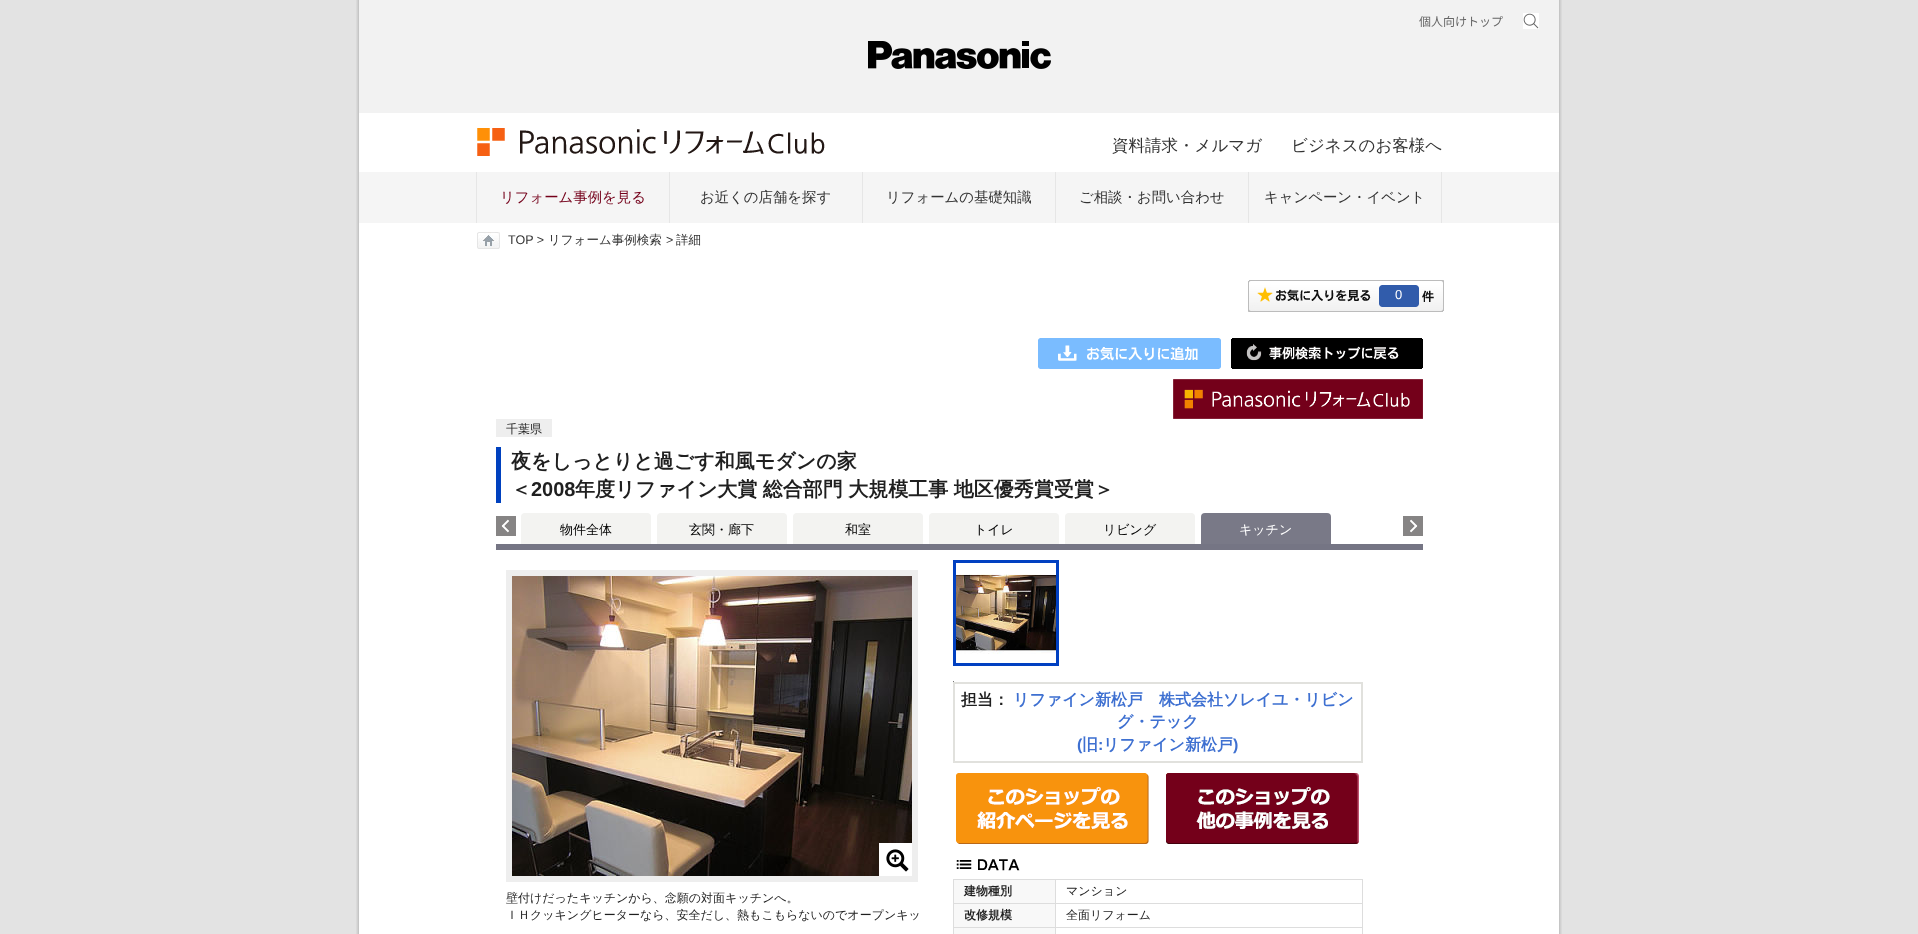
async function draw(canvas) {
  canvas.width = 1918
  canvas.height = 934
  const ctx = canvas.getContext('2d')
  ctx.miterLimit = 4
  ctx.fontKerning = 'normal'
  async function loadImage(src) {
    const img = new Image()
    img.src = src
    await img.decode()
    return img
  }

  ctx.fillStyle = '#e3e3e3'
  ctx.fillRect(0, 0, 1918, 934)
  ctx.drawImage(await loadImage('image0.png'), 356, 0, 1206, 934)
  ctx.fillStyle = '#fff'
  ctx.fillRect(359, 113, 1200, 821)
  ctx.fillStyle = '#f2f2f2'
  ctx.fillRect(359, 0, 1200, 113)
  ctx.font = '12px Noto Sans JP'
  ctx.fillStyle = '#666'
  ctx.fillText('個人向けトップ', 1419, 26)
  ctx.fillStyle = '#fff'
  ctx.fillRect(1523, 13, 16, 16)
  ctx.drawImage(await loadImage('image1.png'), 1523, 13, 16, 16)
  ctx.drawImage(await loadImage('image2.png'), 868, 41, 183, 28)
  ctx.drawImage(await loadImage('image3.png'), 477, 128, 348, 28)
  ctx.font = '500 16.5px WenQuanYi Zen Hei'
  ctx.fillStyle = '#333'
  ctx.fillText('資料請求・メルマガ', 1112, 151)
  ctx.fillText('ビジネスのお客様へ', 1291, 151)
  ctx.fillStyle = '#f5f5f5'
  ctx.fillRect(359, 172, 1200, 51)
  ctx.fillStyle = '#e6e6e6'
  ctx.fillRect(476, 172, 1, 51)
  ctx.font = '500 14.4px WenQuanYi Zen Hei'
  ctx.fillStyle = '#74001a'
  ctx.fillText('リフォーム事例を見る', 500, 202)
  ctx.fillStyle = '#e6e6e6'
  ctx.fillRect(669, 172, 1, 51)
  ctx.fillStyle = '#333'
  ctx.fillText('お近くの店舗を探す', 700, 202)
  ctx.fillStyle = '#e6e6e6'
  ctx.fillRect(862, 172, 1, 51)
  ctx.fillStyle = '#333'
  ctx.fillText('リフォームの基礎知識', 886, 202)
  ctx.fillStyle = '#e6e6e6'
  ctx.fillRect(1055, 172, 1, 51)
  ctx.fillStyle = '#333'
  ctx.fillText('ご相談・お問い合わせ', 1079, 202)
  ctx.fillStyle = '#e6e6e6'
  ctx.fillRect(1441, 172, 1, 51)
  ctx.fillRect(1248, 172, 1, 51)
  ctx.fillStyle = '#333'
  ctx.fillText('キャンペーン・イベント', 1264, 202)
  ctx.drawImage(await loadImage('image4.png'), 477, 232, 23, 17)
  ctx.font = '12.5px Liberation Sans'
  ctx.fillText('TOP >', 508, 244)
  ctx.font = '500 12.5px WenQuanYi Zen Hei'
  ctx.fillText('リフォーム事例検索', 548, 244)
  ctx.font = '12.5px Liberation Sans'
  ctx.fillText('>', 666, 244)
  ctx.font = '500 12.5px WenQuanYi Zen Hei'
  ctx.fillText('詳細', 676, 244)
  ctx.drawImage(await loadImage('image5.png'), 1248, 280, 196, 32)
  ctx.font = '13px Liberation Sans'
  ctx.fillStyle = '#fff'
  ctx.fillText('0', 1395, 299)
  ctx.drawImage(await loadImage('image6.png'), 1038, 338, 183, 31)
  ctx.drawImage(await loadImage('image7.png'), 1231, 338, 192, 31)
  ctx.drawImage(await loadImage('image8.png'), 1173, 379, 250, 40)
  ctx.fillStyle = '#eee'
  ctx.fillRect(496, 419, 56, 18)
  ctx.font = '500 12px WenQuanYi Zen Hei'
  ctx.fillStyle = '#1f1f1f'
  ctx.fillText('千葉県', 506, 433)
  ctx.fillStyle = '#0041bf'
  ctx.fillRect(496, 447, 5, 56)
  ctx.font = 'bold 20px WenQuanYi Zen Hei'
  ctx.fillStyle = '#1f1f1f'
  ctx.fillText('夜をしっとりと過ごす和風モダンの家', 511, 468)
  ctx.fillText('＜', 511, 496)
  ctx.font = 'bold 20px Liberation Sans'
  ctx.fillText('2008', 531, 496)
  ctx.wordSpacing = '-0.5px'
  ctx.font = 'bold 20px WenQuanYi Zen Hei'
  ctx.fillText('年度リファイン大賞 総合部門 大規模工事 地区優秀賞受賞＞', 575, 496)
  ctx.fillStyle = '#757584'
  ctx.fillRect(496, 544, 927, 6)
  ctx.drawImage(await loadImage('image9.png'), 496, 516, 20, 20)
  ctx.fillStyle = '#f3f3f1'
  ctx.beginPath()
  ctx.roundRect(521, 513, 130, 31, [4, 4, 0, 0])
  ctx.fill()
  ctx.wordSpacing = '0px'
  ctx.font = '500 13px WenQuanYi Zen Hei'
  ctx.fillStyle = '#000'
  ctx.fillText('物件全体', 560, 534)
  ctx.fillStyle = '#f3f3f1'
  ctx.beginPath()
  ctx.roundRect(657, 513, 130, 31, [4, 4, 0, 0])
  ctx.fill()
  ctx.fillStyle = '#000'
  ctx.fillText('玄関・廊下', 689, 534)
  ctx.fillStyle = '#f3f3f1'
  ctx.beginPath()
  ctx.roundRect(793, 513, 130, 31, [4, 4, 0, 0])
  ctx.fill()
  ctx.fillStyle = '#000'
  ctx.fillText('和室', 845, 534)
  ctx.fillStyle = '#f3f3f1'
  ctx.beginPath()
  ctx.roundRect(929, 513, 130, 31, [4, 4, 0, 0])
  ctx.fill()
  ctx.fillStyle = '#000'
  ctx.fillText('トイレ', 974, 534)
  ctx.fillStyle = '#f3f3f1'
  ctx.beginPath()
  ctx.roundRect(1065, 513, 130, 31, [4, 4, 0, 0])
  ctx.fill()
  ctx.fillStyle = '#000'
  ctx.fillText('リビング', 1103, 534)
  ctx.fillStyle = '#797987'
  ctx.beginPath()
  ctx.roundRect(1201, 513, 130, 31, [4, 4, 0, 0])
  ctx.fill()
  ctx.fillStyle = '#fff'
  ctx.fillText('キッチン', 1239, 534)
  ctx.drawImage(await loadImage('image10.png'), 1403, 516, 20, 20)
  ctx.strokeStyle = '#eee'
  ctx.lineWidth = 6
  ctx.strokeRect(509, 573, 406, 306)
  ctx.drawImage(await loadImage('image11.png'), 512, 576, 400, 300)
  ctx.drawImage(await loadImage('image12.png'), 879, 843, 33, 33)
  ctx.font = '500 12px WenQuanYi Zen Hei'
  ctx.fillStyle = '#1f1f1f'
  ctx.fillText('壁付けだったキッチンから、念願の対面キッチンへ。', 506, 902)
  ctx.fillText('ＩＨクッキングヒーターなら、安全だし、熱もこもらないのでオープンキッ', 506, 919)
  ctx.strokeStyle = '#0140c1'
  ctx.lineWidth = 3
  ctx.strokeRect(954.5, 561.5, 103, 103)
  ctx.drawImage(await loadImage('image13.png'), 956, 574, 100, 80)
  ctx.fillStyle = '#777'
  ctx.fillRect(953, 681, 1, 1)
  ctx.strokeStyle = '#e1e1dd'
  ctx.lineWidth = 2
  ctx.strokeRect(954, 683, 408, 79)
  ctx.font = 'bold 16px WenQuanYi Zen Hei'
  ctx.fillStyle = '#1f1f1f'
  ctx.fillText('担当：', 961, 705)
  ctx.fillStyle = '#3e70d1'
  ctx.fillText('リファイン新松戸　株式会社ソレイユ・リビン', 1013, 705)
  ctx.fillText('グ・テック', 1117, 727)
  ctx.font = 'bold 16px Liberation Sans'
  ctx.fillText('(', 1077, 750)
  ctx.font = 'bold 16px WenQuanYi Zen Hei'
  ctx.fillText('旧', 1082, 750)
  ctx.font = 'bold 16px Liberation Sans'
  ctx.fillText(':', 1098, 750)
  ctx.font = 'bold 16px WenQuanYi Zen Hei'
  ctx.fillText('リファイン新松戸', 1103, 750)
  ctx.font = 'bold 16px Liberation Sans'
  ctx.fillText(')', 1233, 750)
  ctx.drawImage(await loadImage('image14.png'), 956, 773, 193, 71)
  ctx.drawImage(await loadImage('image15.png'), 1166, 773, 193, 71)
  ctx.drawImage(await loadImage('image16.png'), 956, 859, 64, 12)
  ctx.fillStyle = '#f8f8f8'
  ctx.fillRect(954, 880, 101, 23)
  ctx.fillStyle = '#ddd'
  ctx.fillRect(1055, 879, 308, 1)
  ctx.fillRect(1055, 903, 308, 1)
  ctx.fillRect(1055, 927, 308, 1)
  ctx.fillRect(1055, 927, 1, 7)
  ctx.fillRect(953, 927, 103, 1)
  ctx.fillRect(1055, 903, 1, 25)
  ctx.fillRect(953, 903, 103, 1)
  ctx.fillRect(1055, 879, 1, 25)
  ctx.fillRect(953, 879, 103, 1)
  ctx.fillStyle = '#f8f8f8'
  ctx.fillRect(953, 928, 102, 6)
  ctx.fillStyle = '#ddd'
  ctx.fillRect(953, 927, 1, 7)
  ctx.fillRect(953, 903, 1, 25)
  ctx.fillRect(953, 879, 1, 25)
  ctx.font = 'bold 12px WenQuanYi Zen Hei'
  ctx.fillStyle = '#1f1f1f'
  ctx.fillText('建物種別', 964, 895)
  ctx.fillStyle = '#ddd'
  ctx.fillRect(1362, 927, 1, 7)
  ctx.fillRect(1362, 903, 1, 25)
  ctx.fillRect(1362, 879, 1, 25)
  ctx.font = '500 12px WenQuanYi Zen Hei'
  ctx.fillStyle = '#1f1f1f'
  ctx.fillText('マンション', 1066, 895)
  ctx.fillStyle = '#f8f8f8'
  ctx.fillRect(954, 904, 101, 23)
  ctx.font = 'bold 12px WenQuanYi Zen Hei'
  ctx.fillStyle = '#1f1f1f'
  ctx.fillText('改修規模', 964, 919)
  ctx.font = '500 12px WenQuanYi Zen Hei'
  ctx.fillText('全面リフォーム', 1066, 919)
}

draw(document.querySelector('canvas'))
